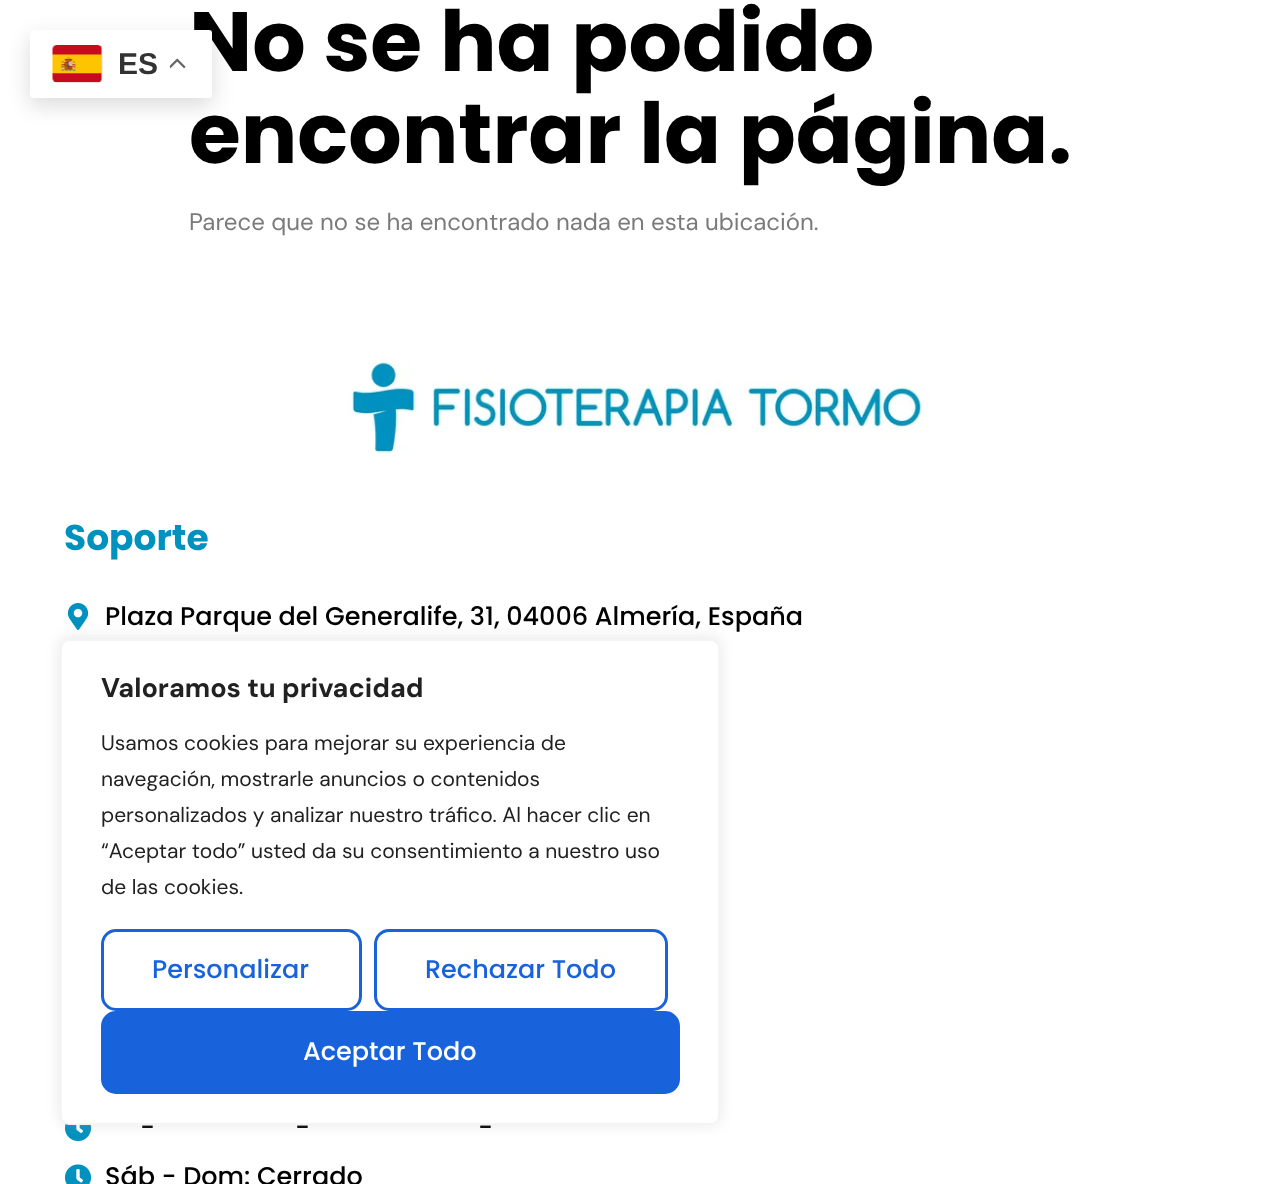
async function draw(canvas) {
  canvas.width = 1278
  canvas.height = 1184
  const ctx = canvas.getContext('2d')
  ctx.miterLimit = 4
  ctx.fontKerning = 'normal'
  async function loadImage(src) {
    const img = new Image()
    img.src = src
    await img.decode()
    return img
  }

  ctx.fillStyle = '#fff'
  ctx.fillRect(0, 0, 1278, 1184)
  ctx.fillStyle = '#00000026'
  ctx.filter = 'blur(11px)'
  ctx.beginPath()
  ctx.roundRect(30, 38, 182, 67, 3)
  ctx.fill()
  ctx.filter = 'none'
  ctx.font = 'bold 84px Poppins'
  ctx.fillStyle = '#000'
  ctx.fillText('No se ha podido', 189, 71)
  ctx.fillText('encontrar la página.', 189, 163)
  ctx.fillStyle = '#fff'
  ctx.beginPath()
  ctx.roundRect(30, 30, 182, 68, 3)
  ctx.fill()
  ctx.drawImage(await loadImage('image0.png'), 52, 45, 51, 38)
  ctx.font = 'bold 30px Liberation Sans'
  ctx.fillStyle = '#333'
  ctx.fillText('ES', 118, 74)
  ctx.drawImage(await loadImage('image1.png'), 170, 58, 16, 11)
  ctx.font = '24px DM Sans'
  ctx.fillStyle = '#7a7a7a'
  ctx.fillText('Parece que no se ha encontrado nada en esta ubicación.', 189, 230)
  ctx.drawImage(await loadImage('image2.png'), 348, 358, 577, 95)
  ctx.font = 'bold 36px Poppins'
  ctx.fillStyle = '#0091bf'
  ctx.fillText('Soporte', 64, 550)
  ctx.drawImage(await loadImage('image3.png'), 67, 603, 22, 27)
  ctx.font = '500 25.5px Poppins'
  ctx.fillStyle = '#000'
  ctx.fillText('Plaza Parque del Generalife, 31, 04006 Almería, España', 105, 625)
  ctx.drawImage(await loadImage('image4.png'), 65, 1124, 27, 18)
  ctx.fillText('-', 140, 1136)
  ctx.fillText('-', 295, 1136)
  ctx.fillText('-', 478, 1136)
  ctx.drawImage(await loadImage('image5.png'), 65, 1164, 27, 20)
  ctx.fillText('Sáb - Dom: Cerrado', 105, 1185)
  ctx.fillStyle = '#acabab4d'
  ctx.filter = 'blur(7.5px)'
  ctx.beginPath()
  ctx.roundRect(60, 638, 660, 486, 9)
  ctx.fill()
  ctx.filter = 'none'
  ctx.fillStyle = '#fff'
  ctx.beginPath()
  ctx.roundRect(61, 640, 658, 484, 8)
  ctx.fill()
  ctx.strokeStyle = '#f4f4f4'
  ctx.lineWidth = 2
  ctx.stroke()
  ctx.font = 'bold 27px DM Sans'
  ctx.fillStyle = '#212121'
  ctx.fillText('Valoramos tu privacidad', 101, 697)
  ctx.font = '21px DM Sans'
  ctx.fillText('Usamos cookies para mejorar su experiencia de', 101, 750)
  ctx.fillText('navegación, mostrarle anuncios o contenidos', 101, 786)
  ctx.fillText('personalizados y analizar nuestro tráfico. Al hacer clic en', 101, 822)
  ctx.fillText('“Aceptar todo” usted da su consentimiento a nuestro uso', 101, 858)
  ctx.fillText('de las cookies.', 101, 894)
  ctx.beginPath()
  ctx.roundRect(102.5, 930.5, 258, 79, 13.5)
  ctx.strokeStyle = '#1863dc'
  ctx.lineWidth = 3
  ctx.stroke()
  ctx.font = '500 25.5px Poppins'
  ctx.fillStyle = '#1863dc'
  ctx.fillText('Personalizar', 152, 978)
  ctx.beginPath()
  ctx.roundRect(375.5, 930.5, 291, 79, 13.5)
  ctx.stroke()
  ctx.fillText('Rechazar Todo', 425, 978)
  ctx.beginPath()
  ctx.roundRect(102.5, 1012.5, 576, 80, 13.5)
  ctx.fill()
  ctx.stroke()
  ctx.fillStyle = '#fff'
  ctx.fillText('Aceptar Todo', 303, 1060)
}

draw(document.querySelector('canvas'))
